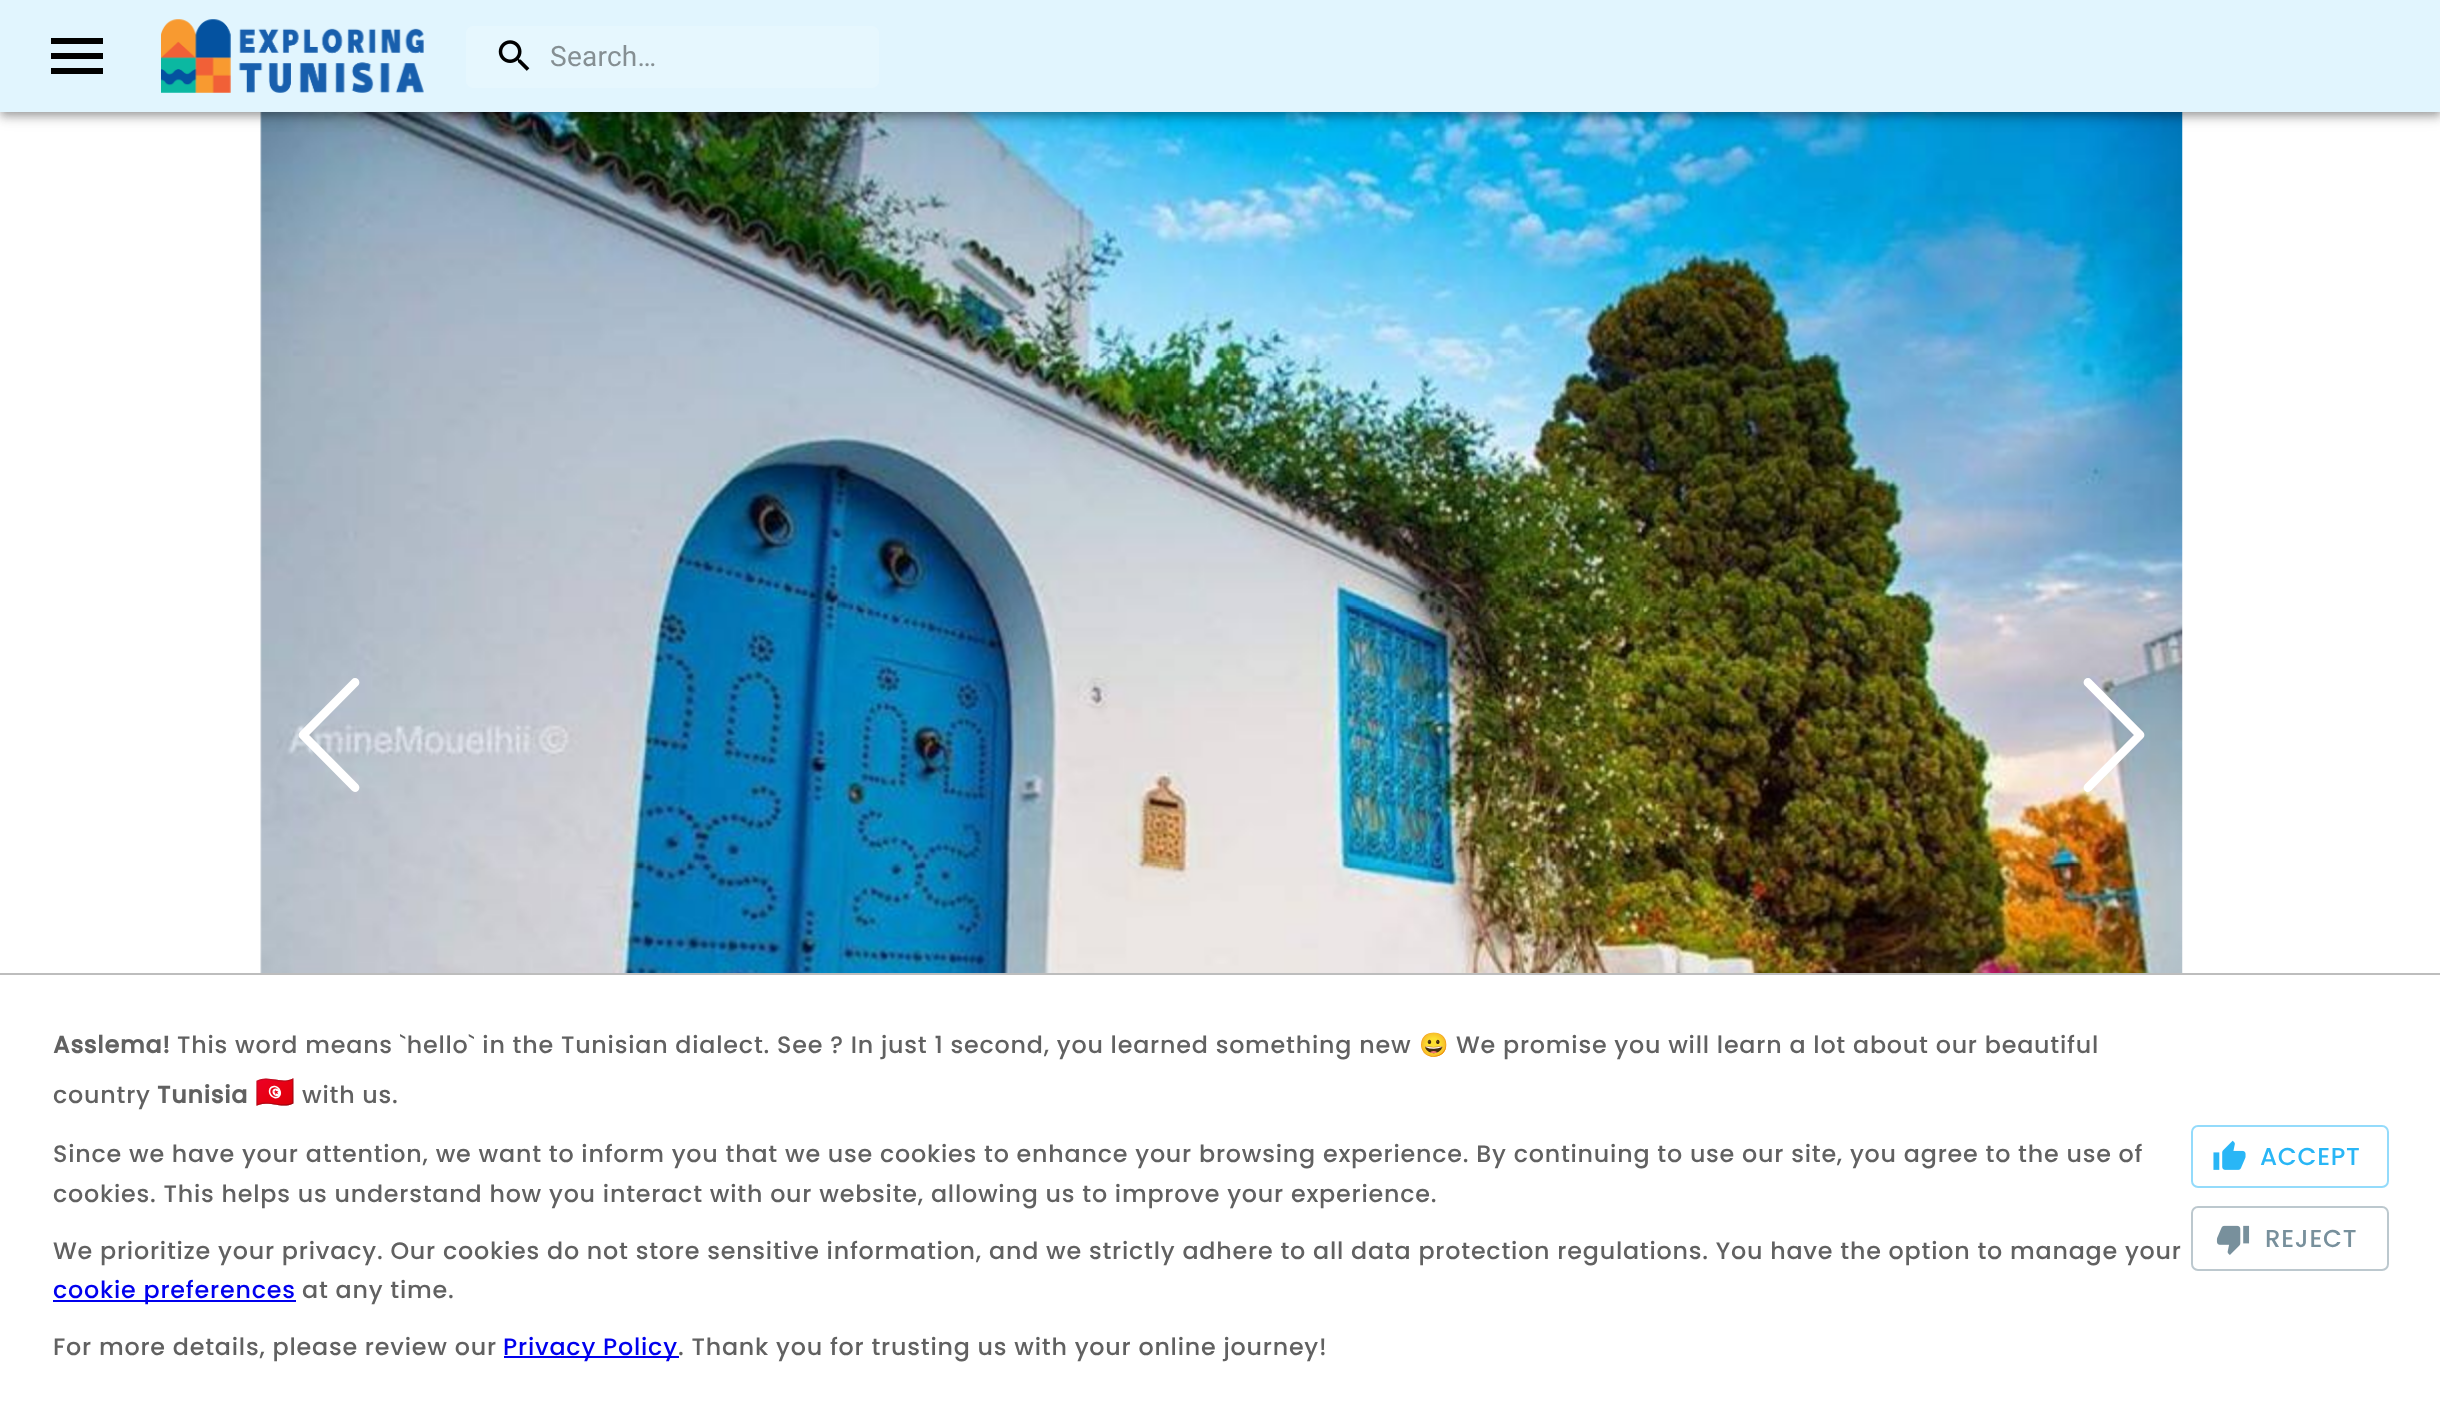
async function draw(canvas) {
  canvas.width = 2440
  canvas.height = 1420
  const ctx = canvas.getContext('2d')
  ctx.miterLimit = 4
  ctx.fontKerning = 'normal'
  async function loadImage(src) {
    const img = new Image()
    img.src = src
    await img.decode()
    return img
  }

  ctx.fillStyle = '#fff'
  ctx.fillRect(0, 0, 2440, 1420)
  ctx.drawImage(await loadImage('image2.png'), 260, 112, 1923, 861)
  ctx.fillStyle = '#0000001f'
  ctx.filter = 'blur(9px)'
  ctx.beginPath()
  ctx.rect(0, 2, 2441, 112)
  ctx.fill()
  ctx.filter = 'none'
  ctx.fillStyle = '#00000024'
  ctx.filter = 'blur(4.5px)'
  ctx.beginPath()
  ctx.rect(0, 7, 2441, 112)
  ctx.fill()
  ctx.filter = 'none'
  ctx.fillStyle = '#00000033'
  ctx.filter = 'blur(3.5px)'
  ctx.beginPath()
  ctx.rect(2, 5, 2438, 109)
  ctx.fill()
  ctx.filter = 'none'
  ctx.fillStyle = '#e1f5fe'
  ctx.fillRect(0, 0, 2440, 112)
  ctx.fillStyle = '#000'
  ctx.beginPath()
  ctx.moveTo(51, 74)
  ctx.lineTo(103, 74)
  ctx.lineTo(103, 68)
  ctx.lineTo(51, 68)
  ctx.closePath()
  ctx.moveTo(51, 59)
  ctx.lineTo(103, 59)
  ctx.lineTo(103, 53)
  ctx.lineTo(51, 53)
  ctx.closePath()
  ctx.moveTo(51, 38)
  ctx.lineTo(51, 44)
  ctx.lineTo(103, 44)
  ctx.lineTo(103, 38)
  ctx.closePath()
  ctx.fill()
  ctx.drawImage(await loadImage('image0.png'), 161, 19, 263, 74)
  ctx.fillStyle = '#e6f7fe'
  ctx.beginPath()
  ctx.roundRect(466, 26, 413, 62, 7)
  ctx.fill()
  ctx.drawImage(await loadImage('image1.png'), 498, 40, 32, 31)
  ctx.letterSpacing = '0.25px'
  ctx.font = '28px Roboto'
  ctx.fillStyle = '#858f93'
  ctx.fillText('Search…', 550, 66)
  ctx.beginPath()
  ctx.moveTo(355, 787.5)
  ctx.lineTo(303, 735)
  ctx.lineTo(355, 682.5)
  ctx.strokeStyle = '#fff'
  ctx.lineWidth = 8.8
  ctx.lineCap = 'round'
  ctx.lineJoin = 'round'
  ctx.stroke()
  ctx.beginPath()
  ctx.moveTo(2088, 787.5)
  ctx.lineTo(2140, 735)
  ctx.lineTo(2088, 682.5)
  ctx.stroke()
  ctx.fillStyle = '#bdbdbd'
  ctx.fillRect(0, 973, 2440, 2)
  ctx.letterSpacing = '0.79px'
  ctx.font = 'bold 23.8px Poppins'
  ctx.fillStyle = '#616161'
  ctx.fillText('Asslema!', 53, 1053)
  ctx.font = '500 23.8px Poppins'
  ctx.fillText('This word means `hello` in the Tunisian dialect. See ? In just 1 second, you learned something new', 177, 1053)
  ctx.font = '23.8px Noto Color Emoji'
  ctx.fillText('😀', 1419, 1053)
  ctx.font = '500 23.8px Poppins'
  ctx.fillText('We promise you will learn a lot about our beautiful', 1456, 1053)
  ctx.fillText('country', 53, 1103)
  ctx.font = 'bold 23.8px Poppins'
  ctx.fillText('Tunisia', 157, 1103)
  ctx.font = '32px Noto Color Emoji'
  ctx.fillText('🇹🇳', 255, 1103)
  ctx.font = '500 23.8px Poppins'
  ctx.fillText('with us.', 302, 1103)
  ctx.fillText('Since we have your attention, we want to inform you that we use cookies to enhance your browsing experience. By continuing to use our site, you agree to the use of', 53, 1162)
  ctx.fillText('cookies. This helps us understand how you interact with our website, allowing us to improve your experience.', 53, 1202)
  ctx.fillText('We prioritize your privacy. Our cookies do not store sensitive information, and we strictly adhere to all data protection regulations. You have the option to manage your', 53, 1259)
  ctx.fillStyle = '#00e'
  ctx.fillRect(53, 1300, 243, 2)
  ctx.fillText('cookie preferences', 53, 1298)
  ctx.fillStyle = '#616161'
  ctx.fillText('at any time.', 302, 1298)
  ctx.fillText('For more details, please review our', 53, 1355)
  ctx.fillStyle = '#00e'
  ctx.fillRect(504, 1356, 175, 2)
  ctx.fillText('Privacy Policy', 503, 1355)
  ctx.fillStyle = '#616161'
  ctx.fillText('. Thank you for trusting us with your online journey!', 678, 1355)
  ctx.beginPath()
  ctx.roundRect(2192, 1126, 196, 61, 6)
  ctx.strokeStyle = '#94dbfb'
  ctx.lineWidth = 2
  ctx.lineJoin = 'miter'
  ctx.stroke()
  ctx.drawImage(await loadImage('image3.png'), 2213, 1140, 33, 30)
  ctx.letterSpacing = '0.75px'
  ctx.font = '500 24.5px Poppins'
  ctx.fillStyle = '#29b6f6'
  ctx.fillText('ACCEPT', 2260, 1165)
  ctx.beginPath()
  ctx.roundRect(2192, 1207, 196, 63, 6)
  ctx.strokeStyle = '#bcc8ce'
  ctx.stroke()
  ctx.drawImage(await loadImage('image4.png'), 2216, 1225, 34, 30)
  ctx.fillStyle = '#78909c'
  ctx.fillText('REJECT', 2265, 1247)
}

draw(document.querySelector('canvas'))
